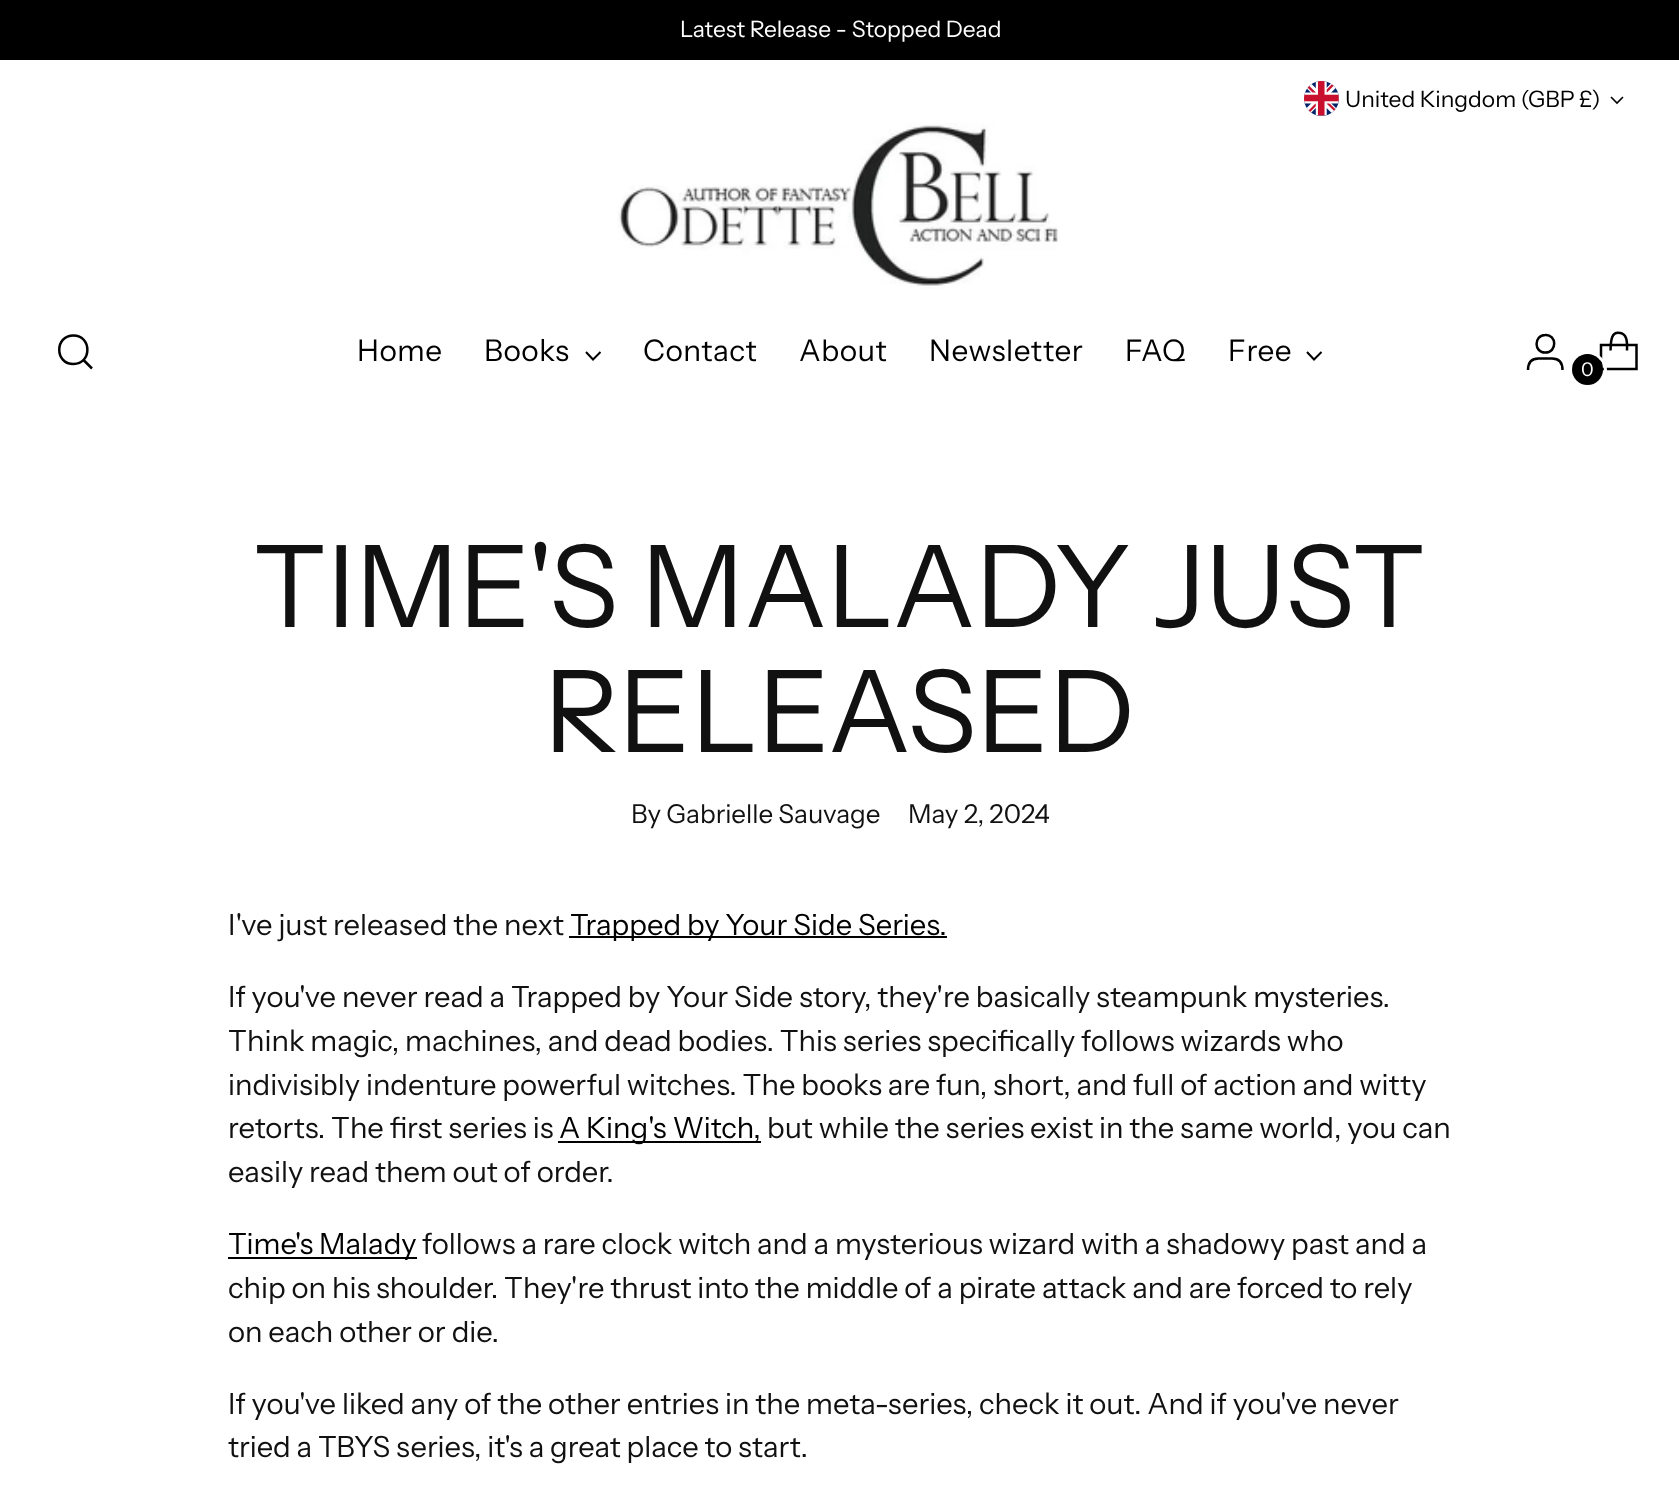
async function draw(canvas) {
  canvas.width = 1679
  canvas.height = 1492
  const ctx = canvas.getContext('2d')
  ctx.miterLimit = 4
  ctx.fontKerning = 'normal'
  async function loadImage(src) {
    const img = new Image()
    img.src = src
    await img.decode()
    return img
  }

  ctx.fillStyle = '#fff'
  ctx.fillRect(0, 0, 1679, 1492)
  ctx.fillStyle = '#000'
  ctx.fillRect(0, 0, 1679, 60)
  ctx.font = '22.75px Instrument Sans'
  ctx.fillStyle = '#fff'
  ctx.fillText('Latest Release - Stopped Dead', 680, 37)
  ctx.drawImage(await loadImage('image0.png'), 1304, 81, 35, 35)
  ctx.fillStyle = '#000'
  ctx.fillText('United Kingdom (GBP £)', 1345, 107)
  ctx.beginPath()
  ctx.moveTo(1611, 97)
  ctx.lineTo(1617, 103)
  ctx.lineTo(1623, 97)
  ctx.strokeStyle = '#000'
  ctx.lineWidth = 1.6
  ctx.stroke()
  ctx.drawImage(await loadImage('image1.png'), 617, 123, 441, 166)
  ctx.beginPath()
  ctx.moveTo(73.5, 364)
  ctx.bezierCurveTo(92, 364, 92, 335.5, 73.5, 335.5)
  ctx.bezierCurveTo(54.5, 335.5, 54.5, 364, 73.5, 364)
  ctx.closePath()
  ctx.lineWidth = 2.5
  ctx.lineCap = 'round'
  ctx.stroke()
  ctx.beginPath()
  ctx.moveTo(83.5, 360)
  ctx.lineTo(92, 368.5)
  ctx.lineCap = 'butt'
  ctx.stroke()
  ctx.letterSpacing = '0.5px'
  ctx.font = '29.75px Instrument Sans'
  ctx.fillText('Home', 357, 361)
  ctx.fillText('Books', 484, 361)
  ctx.beginPath()
  ctx.moveTo(586, 352)
  ctx.lineTo(593, 359.5)
  ctx.lineTo(600.5, 352)
  ctx.lineWidth = 2
  ctx.stroke()
  ctx.fillText('Contact', 643, 361)
  ctx.fillText('About', 799, 361)
  ctx.fillText('Newsletter', 929, 361)
  ctx.fillText('FAQ', 1125, 361)
  ctx.fillText('Free', 1228, 361)
  ctx.beginPath()
  ctx.moveTo(1307, 352)
  ctx.lineTo(1314, 359.5)
  ctx.lineTo(1321.5, 352)
  ctx.stroke()
  ctx.beginPath()
  ctx.moveTo(1545, 352.5)
  ctx.bezierCurveTo(1557.5, 353, 1557, 334, 1545, 335)
  ctx.bezierCurveTo(1533.5, 335.5, 1534, 352.5, 1545, 352.5)
  ctx.closePath()
  ctx.moveTo(1528, 370)
  ctx.bezierCurveTo(1528, 363.5, 1531, 358.5, 1538.5, 358.5)
  ctx.lineTo(1552, 358.5)
  ctx.bezierCurveTo(1559.5, 358.5, 1562.5, 363.5, 1562.5, 370)
  ctx.lineWidth = 2.5
  ctx.stroke()
  ctx.beginPath()
  ctx.moveTo(1627, 350.5)
  ctx.bezierCurveTo(1627, 346.5, 1627.5, 342, 1626, 338)
  ctx.bezierCurveTo(1625, 335.5, 1623, 333.5, 1620.5, 333)
  ctx.bezierCurveTo(1610, 330.5, 1611, 344, 1610.5, 350.5)
  ctx.lineJoin = 'bevel'
  ctx.stroke()
  ctx.beginPath()
  ctx.moveTo(1636.5, 369)
  ctx.lineTo(1636.5, 345)
  ctx.lineTo(1601, 345)
  ctx.lineTo(1601, 369)
  ctx.closePath()
  ctx.lineJoin = 'miter'
  ctx.stroke()
  ctx.beginPath()
  ctx.arc(1588.5, 370.5, 17, 0, 2 * Math.PI)
  ctx.strokeStyle = '#fff'
  ctx.lineWidth = 3
  ctx.stroke()
  ctx.beginPath()
  ctx.arc(1587.5, 369.5, 15.5, 0, 2 * Math.PI)
  ctx.fill()
  ctx.letterSpacing = '0px'
  ctx.font = '19px Instrument Sans'
  ctx.fillStyle = '#fff'
  ctx.fillText('0', 1581, 376)
  ctx.font = '113.75px Instrument Sans'
  ctx.fillStyle = '#111'
  ctx.fillText('TIME\'S MALADY JUST', 253, 627)
  ctx.fillText('RELEASED', 544, 752)
  ctx.font = '26px Instrument Sans'
  ctx.fillText('By Gabrielle Sauvage', 631, 823)
  ctx.fillText('May 2, 2024', 908, 823)
  ctx.font = '29.2px Instrument Sans'
  ctx.fillText('I\'ve just released the next', 228, 935)
  ctx.fillStyle = '#000'
  ctx.fillRect(569, 936, 378, 2)
  ctx.fillText('Trapped by Your Side Series.', 570, 935)
  ctx.fillStyle = '#111'
  ctx.fillText('If you\'ve never read a Trapped by Your Side story, they\'re basically steampunk mysteries.', 228, 1007)
  ctx.fillText('Think magic, machines, and dead bodies. This series specifically follows wizards who', 228, 1051)
  ctx.fillText('indivisibly indenture powerful witches. The books are fun, short, and full of action and witty', 228, 1095)
  ctx.fillText('retorts. The first series is', 228, 1138)
  ctx.fillStyle = '#000'
  ctx.fillRect(558, 1141, 203, 2)
  ctx.fillText('A King\'s Witch,', 559, 1138)
  ctx.fillStyle = '#111'
  ctx.fillText('but while the series exist in the same world, you can', 767, 1138)
  ctx.fillText('easily read them out of order.', 228, 1182)
  ctx.fillStyle = '#000'
  ctx.fillRect(228, 1257, 189, 2)
  ctx.fillText('Time\'s Malady', 228, 1254)
  ctx.fillStyle = '#111'
  ctx.fillText('follows a rare clock witch and a mysterious wizard with a shadowy past and a', 422, 1254)
  ctx.fillText('chip on his shoulder. They\'re thrust into the middle of a pirate attack and are forced to rely', 228, 1298)
  ctx.fillText('on each other or die.', 228, 1342)
  ctx.fillText('If you\'ve liked any of the other entries in the meta-series, check it out. And if you\'ve never', 228, 1414)
  ctx.fillText('tried a TBYS series, it\'s a great place to start.', 228, 1457)
}

draw(document.querySelector('canvas'))
